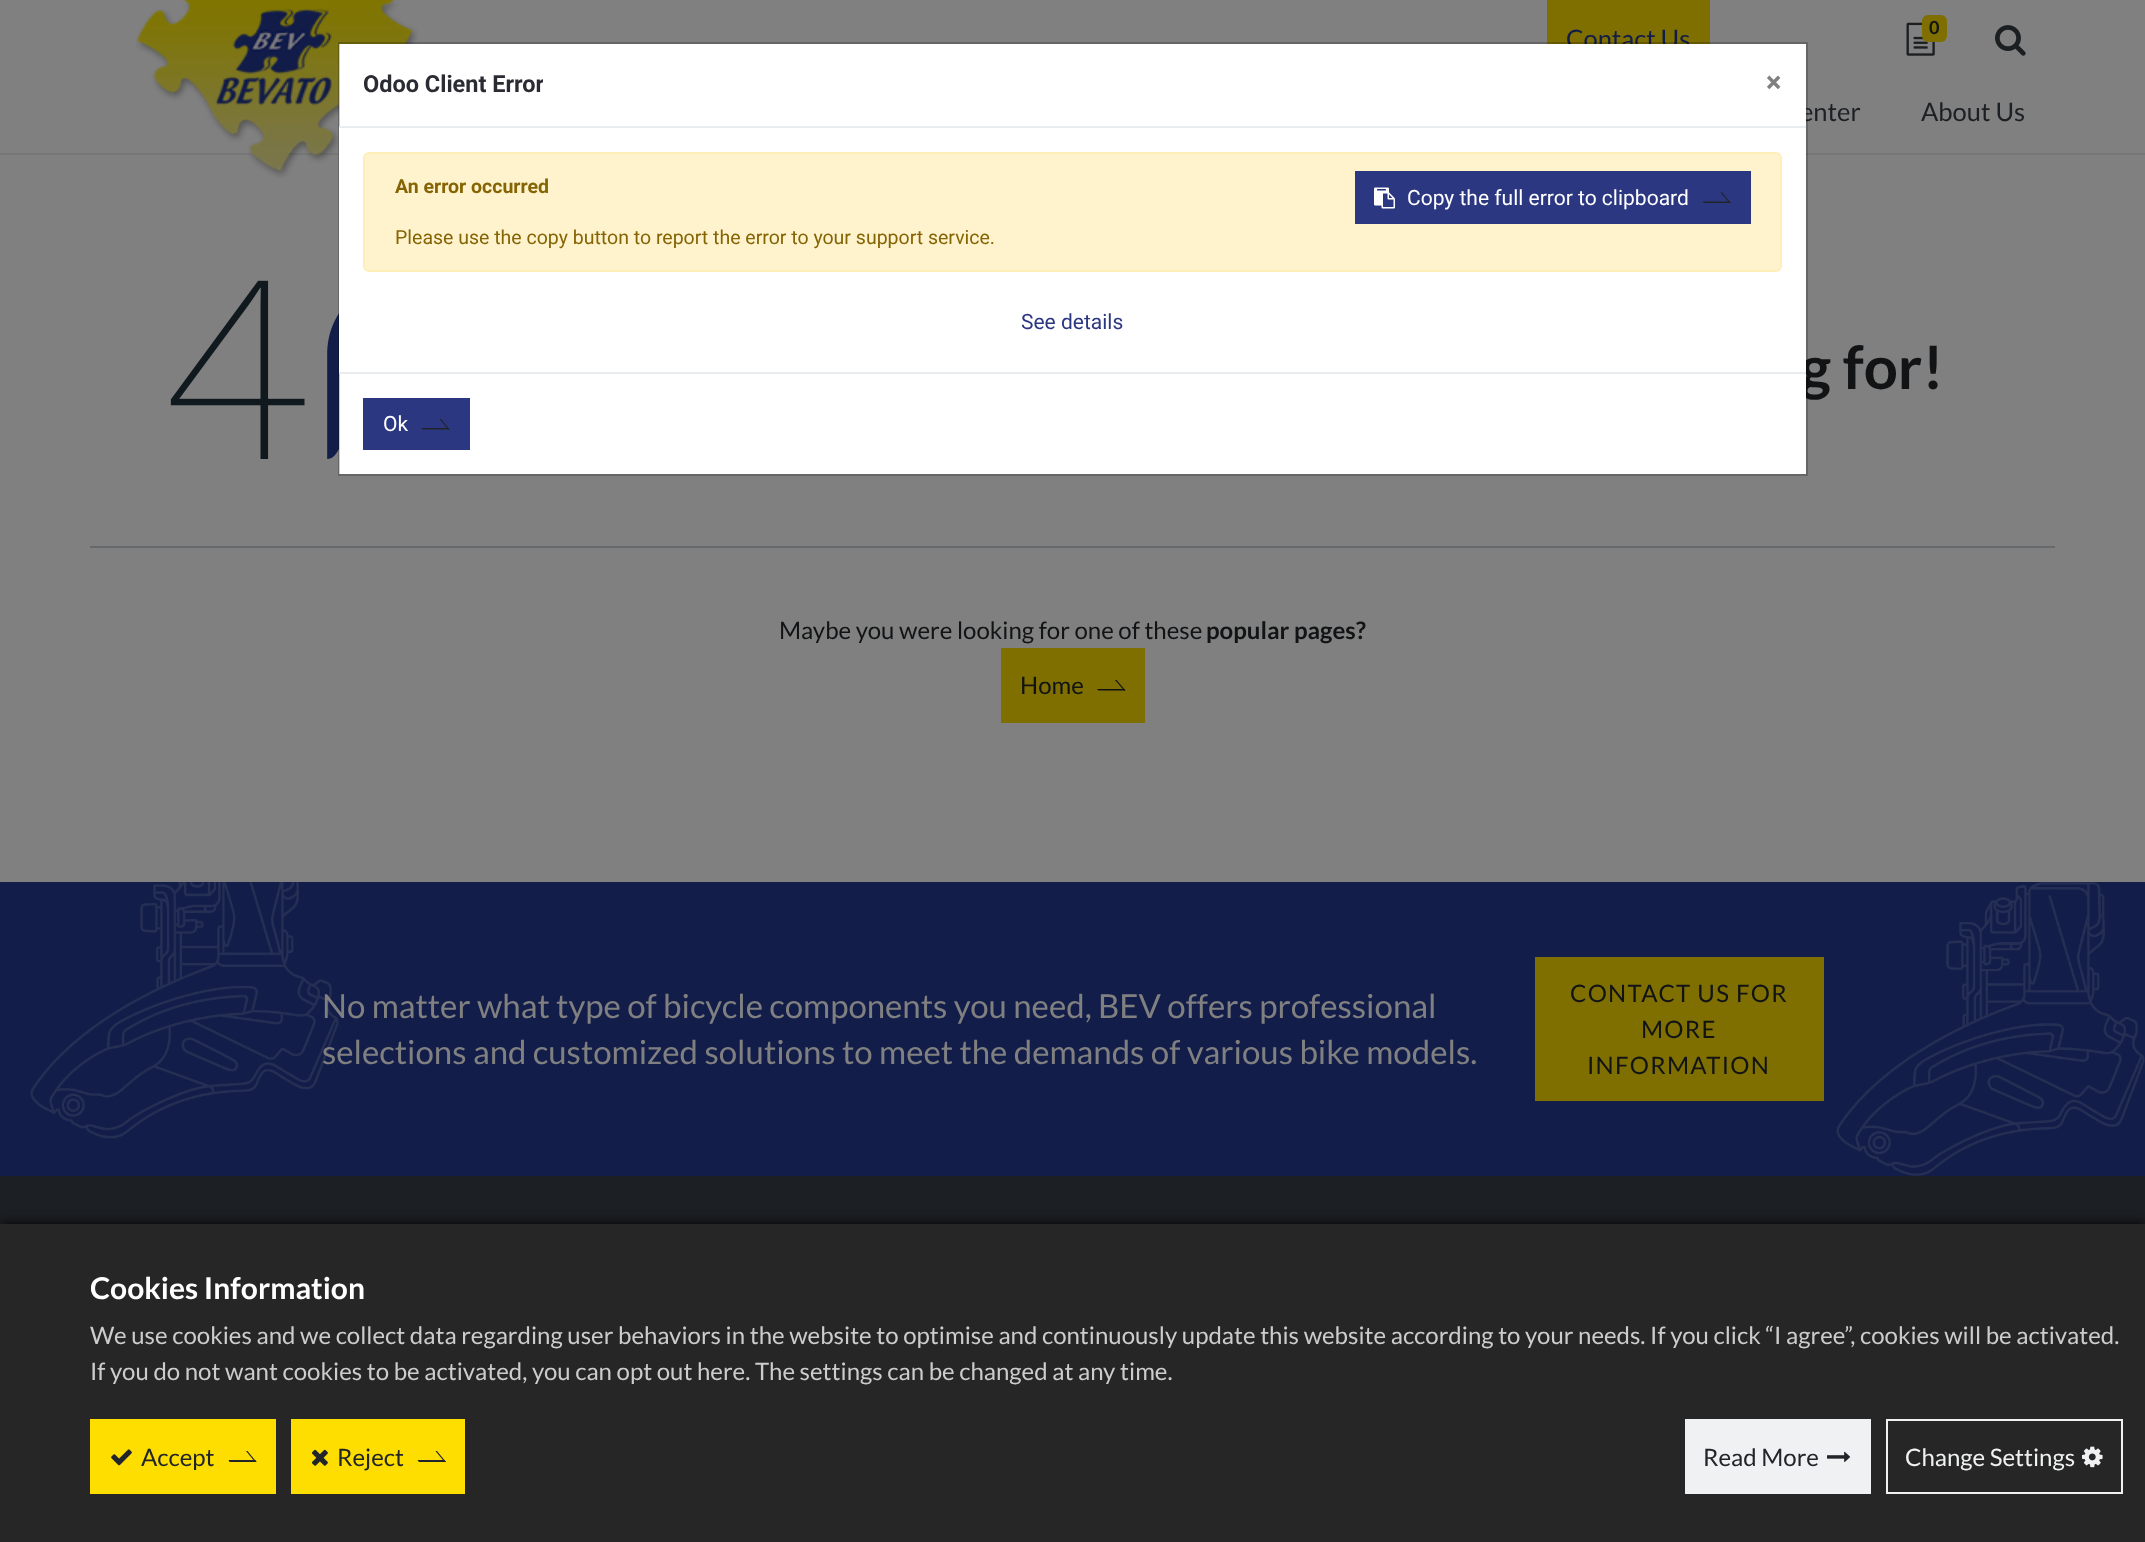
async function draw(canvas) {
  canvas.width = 2145
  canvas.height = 1542
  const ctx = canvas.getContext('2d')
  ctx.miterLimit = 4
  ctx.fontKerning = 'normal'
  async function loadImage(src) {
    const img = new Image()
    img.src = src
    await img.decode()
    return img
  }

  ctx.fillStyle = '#808080'
  ctx.fillRect(0, 0, 2145, 1542)
  ctx.fillStyle = '#777'
  ctx.fillRect(0, 153, 2145, 2)
  ctx.drawImage(await loadImage('image0.png'), 136, 0, 282, 178)
  ctx.drawImage(await loadImage('image1.png'), 1906, 22, 29, 34)
  ctx.fillStyle = '#7f6f00'
  ctx.beginPath()
  ctx.roundRect(1922, 15, 25, 27, 6)
  ctx.fill()
  ctx.font = 'bold 18px Lato'
  ctx.fillStyle = '#111315'
  ctx.fillText('0', 1929, 34)
  ctx.drawImage(await loadImage('image2.png'), 1995, 25, 31, 31)
  ctx.fillStyle = '#7f6f00'
  ctx.fillRect(1547, 0, 163, 44)
  ctx.font = '25.5px Lato'
  ctx.fillStyle = '#111c4a'
  ctx.fillText('Contact Us', 1566, 48)
  ctx.fillStyle = '#1c1f23'
  ctx.fillText('enter', 1800, 121)
  ctx.fillText('About Us', 1921, 121)
  ctx.drawImage(await loadImage('image3.png'), 170, 280, 169, 179)
  ctx.font = 'bold 60px Lato'
  ctx.fillStyle = '#111315'
  ctx.fillText('g for!', 1800, 389)
  ctx.fillStyle = '#676a6d'
  ctx.fillRect(90, 546, 1965, 2)
  ctx.font = '24px Lato'
  ctx.fillStyle = '#111315'
  ctx.fillText('Maybe you were looking for one of these', 779, 639)
  ctx.font = 'bold 24px Lato'
  ctx.fillText('popular pages?', 1206, 639)
  ctx.fillStyle = '#7f6f00'
  ctx.fillRect(1001, 648, 144, 75)
  ctx.font = '24px Lato'
  ctx.fillStyle = '#111315'
  ctx.fillText('Home', 1020, 694)
  ctx.beginPath()
  ctx.moveTo(1115, 680)
  ctx.lineTo(1116.5, 680)
  ctx.lineTo(1125.5, 690.5)
  ctx.lineTo(1124, 690.5)
  ctx.closePath()
  ctx.fill()
  ctx.beginPath()
  ctx.moveTo(1097, 689)
  ctx.lineTo(1124, 689)
  ctx.lineTo(1125.5, 690.5)
  ctx.lineTo(1098.5, 690.5)
  ctx.closePath()
  ctx.fill()
  ctx.fillStyle = '#1c1f23'
  ctx.fillRect(0, 1176, 2145, 48)
  ctx.fillStyle = '#131d4a'
  ctx.fillRect(0, 882, 2145, 294)
  ctx.drawImage(await loadImage('image4.png'), 30, 882, 2115, 294)
  ctx.font = '33px Lato'
  ctx.fillStyle = '#808080'
  ctx.fillText('No matter what type of bicycle components you need, BEV offers professional', 322, 1018)
  ctx.fillText('selections and customized solutions to meet the demands of various bike models.', 322, 1064)
  ctx.fillStyle = '#7f6f00'
  ctx.fillRect(1535, 957, 289, 144)
  ctx.letterSpacing = '1.25px'
  ctx.font = '24px Lato'
  ctx.fillStyle = '#111315'
  ctx.fillText('CONTACT US FOR', 1570, 1002)
  ctx.fillText('MORE', 1641, 1038)
  ctx.fillText('INFORMATION', 1587, 1074)
  ctx.fillStyle = '#fff'
  ctx.fillRect(339, 44, 1467, 430)
  ctx.strokeStyle = '#00000033'
  ctx.lineWidth = 2
  ctx.strokeRect(339, 43, 1468, 432)
  ctx.fillStyle = '#e9ecef'
  ctx.fillRect(339, 126, 1467, 2)
  ctx.save()
  ctx.beginPath()
  ctx.rect(363, 68, 180, 34)
  ctx.clip()
  ctx.letterSpacing = '0px'
  ctx.font = 'bold 23.5px Roboto'
  ctx.fillStyle = '#2b2b33'
  ctx.fillText('Odoo Client Error', 363, 92)
  ctx.restore()
  ctx.letterSpacing = '0px'
  ctx.font = 'bold 29px Roboto'
  ctx.fillStyle = '#808080'
  ctx.fillText('×', 1766, 92)
  ctx.fillStyle = '#fff'
  ctx.fillRect(339, 128, 1, 244)
  ctx.fillStyle = '#fff3cd'
  ctx.beginPath()
  ctx.roundRect(364, 153, 1417, 118, 5)
  ctx.fill()
  ctx.strokeStyle = '#ffeeba'
  ctx.stroke()
  ctx.font = 'bold 19.5px Roboto'
  ctx.fillStyle = '#856404'
  ctx.fillText('An error occurred', 395, 193)
  ctx.fillStyle = '#2c3782'
  ctx.fillRect(1355, 171, 396, 53)
  ctx.drawImage(await loadImage('image5.png'), 1374, 187, 21, 22)
  ctx.font = '21px Roboto'
  ctx.fillStyle = '#fff'
  ctx.fillText('Copy the full error to clipboard', 1407, 205)
  ctx.fillStyle = '#212529'
  ctx.beginPath()
  ctx.moveTo(1720.5, 192.5)
  ctx.lineTo(1722, 192.5)
  ctx.lineTo(1731, 203)
  ctx.lineTo(1729.5, 203)
  ctx.closePath()
  ctx.fill()
  ctx.beginPath()
  ctx.moveTo(1702.5, 201.5)
  ctx.lineTo(1729.5, 201.5)
  ctx.lineTo(1731, 203)
  ctx.lineTo(1704, 203)
  ctx.closePath()
  ctx.fill()
  ctx.font = '19.5px Roboto'
  ctx.fillStyle = '#856404'
  ctx.fillText('Please use the copy button to report the error to your support service.', 395, 244)
  ctx.font = '21px Roboto'
  ctx.fillStyle = '#2c3782'
  ctx.fillText('See details', 1021, 329)
  ctx.fillStyle = '#e9ecef'
  ctx.fillRect(339, 372, 1467, 2)
  ctx.fillStyle = '#2c3782'
  ctx.fillRect(363, 398, 107, 52)
  ctx.fillStyle = '#fff'
  ctx.fillText('Ok', 383, 431)
  ctx.fillStyle = '#212529'
  ctx.beginPath()
  ctx.moveTo(439.5, 419)
  ctx.lineTo(441, 419)
  ctx.lineTo(449.5, 429.5)
  ctx.lineTo(448, 429.5)
  ctx.closePath()
  ctx.fill()
  ctx.beginPath()
  ctx.moveTo(421.5, 428)
  ctx.lineTo(448.5, 428)
  ctx.lineTo(449.5, 429.5)
  ctx.lineTo(422.5, 429.5)
  ctx.closePath()
  ctx.fill()
  ctx.fillStyle = '#000'
  ctx.filter = 'blur(6px)'
  ctx.beginPath()
  ctx.rect(0, 1224, 2145, 318)
  ctx.fill()
  ctx.filter = 'none'
  ctx.fillStyle = '#262626'
  ctx.fillRect(0, 1224, 2145, 318)
  ctx.font = 'bold 30px Lato'
  ctx.fillStyle = '#fff'
  ctx.fillText('Cookies Information', 90, 1299)
  ctx.font = '24px Lato'
  ctx.fillStyle = '#ccc'
  ctx.fillText('We use cookies and we collect data regarding user behaviors in the website to optimise and continuously update this website according to your needs. If you click “I agree”, cookies will be activated.', 90, 1344)
  ctx.fillText('If you do not want cookies to be activated, you can opt out here. The settings can be changed at any time.', 90, 1380)
  ctx.fillStyle = '#fede00'
  ctx.fillRect(90, 1419, 186, 75)
  ctx.drawImage(await loadImage('image6.png'), 111, 1449, 21, 17)
  ctx.fillStyle = '#212529'
  ctx.fillText('Accept', 141, 1466)
  ctx.beginPath()
  ctx.moveTo(246, 1451)
  ctx.lineTo(247.5, 1451)
  ctx.lineTo(256.5, 1462)
  ctx.lineTo(255, 1462)
  ctx.closePath()
  ctx.fill()
  ctx.beginPath()
  ctx.moveTo(228.5, 1460)
  ctx.lineTo(255.5, 1460)
  ctx.lineTo(256.5, 1462)
  ctx.lineTo(229.5, 1462)
  ctx.closePath()
  ctx.fill()
  ctx.fillStyle = '#fede00'
  ctx.fillRect(291, 1419, 174, 75)
  ctx.drawImage(await loadImage('image7.png'), 312, 1449, 16, 17)
  ctx.fillStyle = '#212529'
  ctx.fillText('Reject', 337, 1466)
  ctx.beginPath()
  ctx.moveTo(435.5, 1451)
  ctx.lineTo(437, 1451)
  ctx.lineTo(446, 1462)
  ctx.lineTo(444.5, 1462)
  ctx.closePath()
  ctx.fill()
  ctx.beginPath()
  ctx.moveTo(417.5, 1460)
  ctx.lineTo(444.5, 1460)
  ctx.lineTo(446, 1462)
  ctx.lineTo(419, 1462)
  ctx.closePath()
  ctx.fill()
  ctx.fillStyle = '#f0f1f2'
  ctx.fillRect(1685, 1419, 186, 75)
  ctx.fillStyle = '#212529'
  ctx.fillText('Read More', 1703, 1466)
  ctx.drawImage(await loadImage('image8.png'), 1827, 1451, 24, 11)
  ctx.strokeStyle = '#f0f1f2'
  ctx.strokeRect(1887, 1420, 235, 73)
  ctx.fillStyle = '#f0f1f2'
  ctx.fillText('Change Settings', 1905, 1466)
  ctx.drawImage(await loadImage('image9.png'), 2082, 1446, 21, 22)
}

draw(document.querySelector('canvas'))
